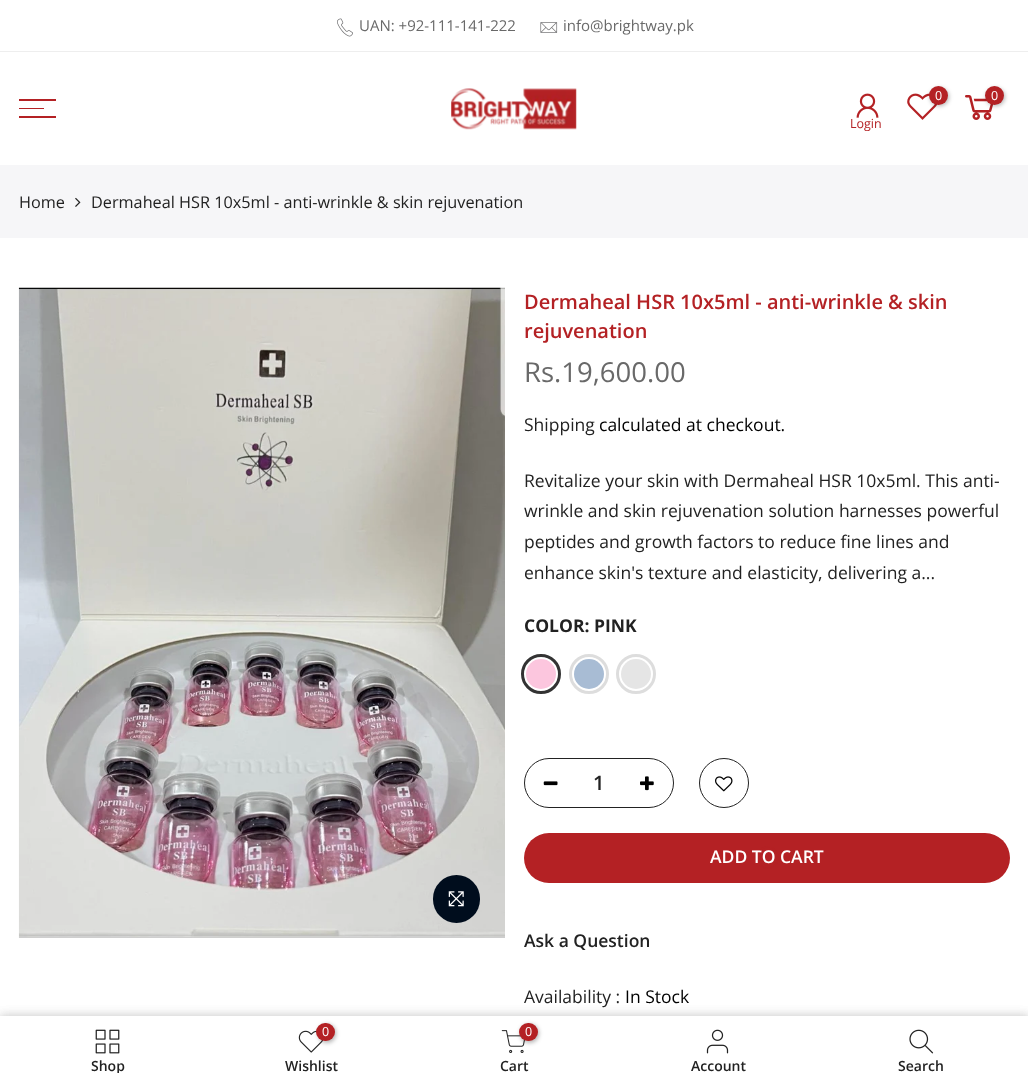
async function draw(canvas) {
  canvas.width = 1028
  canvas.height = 1085
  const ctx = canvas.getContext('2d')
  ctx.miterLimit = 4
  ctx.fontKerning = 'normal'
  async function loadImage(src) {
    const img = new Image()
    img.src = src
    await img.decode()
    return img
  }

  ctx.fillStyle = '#fff'
  ctx.fillRect(0, 0, 1028, 1085)
  ctx.fillStyle = '#eee'
  ctx.fillRect(0, 51, 1028, 1)
  ctx.drawImage(await loadImage('image0.png'), 337, 18, 16, 19)
  ctx.font = '15px Open Sans'
  ctx.fillStyle = '#696969'
  ctx.fillText('UAN: +92-111-141-222', 359, 31)
  ctx.drawImage(await loadImage('image1.png'), 540, 22, 18, 11)
  ctx.fillText('info@brightway.pk', 563, 31)
  ctx.fillStyle = '#b42124'
  ctx.fillRect(19, 99, 37, 2)
  ctx.fillRect(19, 108, 25, 1)
  ctx.fillRect(19, 116, 37, 2)
  ctx.drawImage(await loadImage('image2.png'), 451, 88, 126, 42)
  ctx.drawImage(await loadImage('image3.png'), 907, 93, 31, 27)
  ctx.fillStyle = '#0000004d'
  ctx.filter = 'blur(2px)'
  ctx.beginPath()
  ctx.roundRect(930, 88, 19, 18, 9)
  ctx.fill()
  ctx.filter = 'none'
  ctx.fillStyle = '#b42124'
  ctx.beginPath()
  ctx.arc(938.5, 95.5, 9.5, 0, 2 * Math.PI)
  ctx.fill()
  ctx.font = '12.5px Open Sans'
  ctx.fillStyle = '#fff'
  ctx.fillText('0', 935, 100)
  ctx.drawImage(await loadImage('image4.png'), 965, 95, 29, 25)
  ctx.fillStyle = '#0000004d'
  ctx.filter = 'blur(2px)'
  ctx.beginPath()
  ctx.roundRect(986, 88, 19, 18, 9)
  ctx.fill()
  ctx.filter = 'none'
  ctx.fillStyle = '#b42124'
  ctx.beginPath()
  ctx.arc(994.5, 95.5, 9.5, 0, 2 * Math.PI)
  ctx.fill()
  ctx.fillStyle = '#fff'
  ctx.fillText('0', 991, 100)
  ctx.drawImage(await loadImage('image5.png'), 856, 93, 23, 25)
  ctx.fillStyle = '#b42124'
  ctx.fillText('Login', 850, 128)
  ctx.fillStyle = '#f6f6f8'
  ctx.fillRect(0, 165, 1028, 73)
  ctx.font = '16.25px Open Sans'
  ctx.fillStyle = '#222'
  ctx.fillText('Home', 19, 208)
  ctx.drawImage(await loadImage('image6.png'), 75, 197, 6, 10)
  ctx.fillText('Dermaheal HSR 10x5ml - anti-wrinkle & skin rejuvenation', 91, 208)
  ctx.drawImage(await loadImage('image7.png'), 18, 287, 487, 651)
  ctx.fillStyle = '#000d1d'
  ctx.beginPath()
  ctx.roundRect(433, 875, 47, 48, 23.5)
  ctx.fill()
  ctx.drawImage(await loadImage('image8.png'), 448, 891, 16, 16)
  ctx.font = '600 20px Open Sans'
  ctx.fillStyle = '#b42124'
  ctx.fillText('Dermaheal HSR 10x5ml - anti-wrinkle & skin', 524, 309)
  ctx.fillText('rejuvenation', 524, 338)
  ctx.font = '27.5px Open Sans'
  ctx.fillStyle = '#696969'
  ctx.fillText('Rs.19,600.00', 524, 382)
  ctx.font = '17.5px Open Sans'
  ctx.fillStyle = '#222'
  ctx.fillText('Shipping', 524, 431)
  ctx.fillStyle = '#000'
  ctx.fillText('calculated at checkout.', 599, 431)
  ctx.fillStyle = '#222'
  ctx.fillText('Revitalize your skin with Dermaheal HSR 10x5ml. This anti-', 524, 487)
  ctx.fillText('wrinkle and skin rejuvenation solution harnesses powerful', 524, 517)
  ctx.fillText('peptides and growth factors to reduce fine lines and', 524, 548)
  ctx.fillText('enhance skin\'s texture and elasticity, delivering a...', 524, 579)
  ctx.font = 'bold 17.5px Open Sans'
  ctx.fillText('COLOR: PINK', 524, 632)
  ctx.beginPath()
  ctx.arc(541, 674, 18.5, 0, 2 * Math.PI)
  ctx.strokeStyle = '#333'
  ctx.lineWidth = 3
  ctx.stroke()
  ctx.fillStyle = '#fcc6de'
  ctx.beginPath()
  ctx.arc(541, 674, 15, 0, 2 * Math.PI)
  ctx.fill()
  ctx.beginPath()
  ctx.arc(589, 674, 18.5, 0, 2 * Math.PI)
  ctx.strokeStyle = '#ddd'
  ctx.stroke()
  ctx.fillStyle = '#a8bcd4'
  ctx.beginPath()
  ctx.arc(589, 674, 15, 0, 2 * Math.PI)
  ctx.fill()
  ctx.beginPath()
  ctx.arc(636, 674, 18.5, 0, 2 * Math.PI)
  ctx.stroke()
  ctx.fillStyle = '#e5e5e5'
  ctx.beginPath()
  ctx.arc(636, 674, 15, 0, 2 * Math.PI)
  ctx.fill()
  ctx.beginPath()
  ctx.roundRect(524.5, 758.5, 149, 49, 24.5)
  ctx.strokeStyle = '#222'
  ctx.lineWidth = 1
  ctx.stroke()
  ctx.font = '600 20px Open Sans'
  ctx.fillStyle = '#222'
  ctx.fillText('1', 593, 790)
  ctx.drawImage(await loadImage('image9.png'), 543, 781, 15, 5)
  ctx.drawImage(await loadImage('image10.png'), 640, 776, 14, 15)
  ctx.beginPath()
  ctx.arc(724, 783, 24.5, 0, 2 * Math.PI)
  ctx.stroke()
  ctx.drawImage(await loadImage('image11.png'), 715, 776, 18, 16)
  ctx.beginPath()
  ctx.moveTo(716, 791.5)
  ctx.bezierCurveTo(712, 787, 712, 780.5, 716, 776)
  ctx.strokeStyle = '#fff'
  ctx.lineWidth = 1.2
  ctx.stroke()
  ctx.fillStyle = '#b42124'
  ctx.beginPath()
  ctx.roundRect(524, 833, 486, 50, 25)
  ctx.fill()
  ctx.font = '600 17.5px Open Sans'
  ctx.fillStyle = '#fff'
  ctx.fillText('ADD TO CART', 710, 863)
  ctx.beginPath()
  ctx.moveTo(760, 850)
  ctx.bezierCurveTo(762, 848, 764.5, 847, 767.5, 847)
  ctx.bezierCurveTo(780, 847, 782, 865.5, 769.5, 868)
  ctx.bezierCurveTo(766, 868.5, 762.5, 867.5, 760, 865)
  ctx.strokeStyle = '#b42124'
  ctx.stroke()
  ctx.fillStyle = '#222'
  ctx.fillText('Ask a Question', 524, 947)
  ctx.font = '17.5px Open Sans'
  ctx.fillText('Availability :', 524, 1003)
  ctx.fillStyle = '#000'
  ctx.fillText('In Stock', 625, 1003)
  ctx.fillStyle = '#0000001f'
  ctx.filter = 'blur(5.5px)'
  ctx.beginPath()
  ctx.rect(0, 1016, 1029, 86)
  ctx.fill()
  ctx.filter = 'none'
  ctx.filter = 'blur(5.5px)'
  ctx.beginPath()
  ctx.rect(0, 1016, 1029, 69)
  ctx.fill()
  ctx.filter = 'none'
  ctx.fillStyle = '#fff'
  ctx.fillRect(0, 1016, 1028, 69)
  ctx.drawImage(await loadImage('image12.png'), 95, 1029, 25, 25)
  ctx.save()
  ctx.beginPath()
  ctx.rect(19, 1059, 179, 14)
  ctx.clip()
  ctx.font = '600 14px Open Sans'
  ctx.fillStyle = '#222'
  ctx.fillText('Shop', 91, 1071)
  ctx.restore()
  ctx.drawImage(await loadImage('image13.png'), 298, 1030, 26, 23)
  ctx.fillStyle = '#0000004d'
  ctx.filter = 'blur(2px)'
  ctx.beginPath()
  ctx.roundRect(318, 1024, 18, 19, 9)
  ctx.fill()
  ctx.filter = 'none'
  ctx.fillStyle = '#b42124'
  ctx.beginPath()
  ctx.roundRect(316, 1023, 19, 18, 9)
  ctx.fill()
  ctx.font = '12.5px Open Sans'
  ctx.fillStyle = '#fff'
  ctx.fillText('0', 322, 1036)
  ctx.font = '600 14px Open Sans'
  ctx.fillStyle = '#222'
  ctx.fillText('Wishlist', 285, 1071)
  ctx.drawImage(await loadImage('image14.png'), 501, 1030, 24, 23)
  ctx.fillStyle = '#0000004d'
  ctx.filter = 'blur(2px)'
  ctx.beginPath()
  ctx.roundRect(520, 1024, 19, 19, 9.5)
  ctx.fill()
  ctx.filter = 'none'
  ctx.fillStyle = '#b42124'
  ctx.beginPath()
  ctx.roundRect(519, 1023, 19, 18, 9)
  ctx.fill()
  ctx.font = '12.5px Open Sans'
  ctx.fillStyle = '#fff'
  ctx.fillText('0', 525, 1036)
  ctx.font = '600 14px Open Sans'
  ctx.fillStyle = '#222'
  ctx.fillText('Cart', 500, 1071)
  ctx.drawImage(await loadImage('image15.png'), 706, 1029, 23, 25)
  ctx.fillText('Account', 691, 1071)
  ctx.drawImage(await loadImage('image16.png'), 909, 1029, 25, 25)
  ctx.fillText('Search', 898, 1071)
}

draw(document.querySelector('canvas'))
